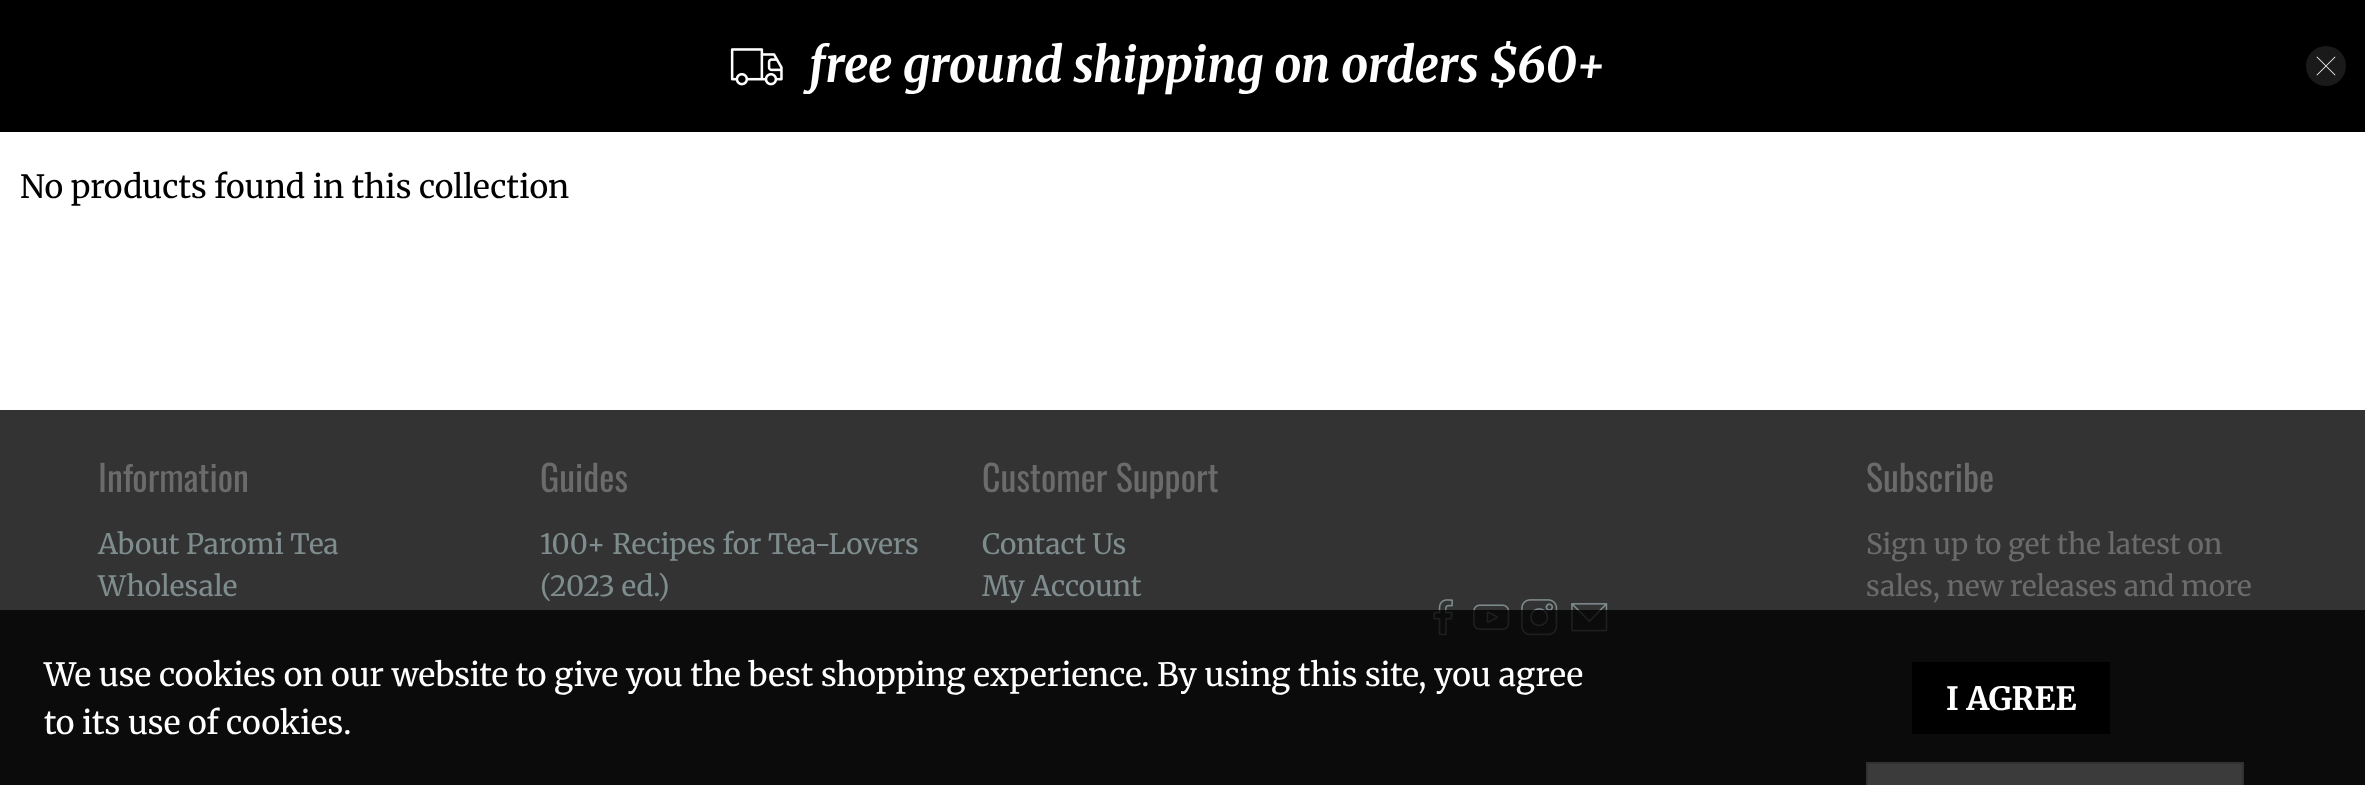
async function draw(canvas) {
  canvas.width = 2365
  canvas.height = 785
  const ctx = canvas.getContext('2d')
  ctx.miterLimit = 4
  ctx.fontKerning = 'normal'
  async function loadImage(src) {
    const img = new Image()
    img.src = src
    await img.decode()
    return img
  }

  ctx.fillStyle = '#fff'
  ctx.fillRect(0, 0, 2365, 785)
  ctx.fillStyle = '#000'
  ctx.fillRect(0, 0, 2365, 132)
  ctx.drawImage(await loadImage('image0.png'), 730, 48, 53, 38)
  ctx.font = 'italic bold 48px Merriweather'
  ctx.fillStyle = '#fff'
  ctx.fillText('free ground shipping on orders $60+', 809, 82)
  ctx.fillStyle = '#1a1a1a'
  ctx.beginPath()
  ctx.arc(2326, 66, 20, 0, 2 * Math.PI)
  ctx.fill()
  ctx.drawImage(await loadImage('image1.png'), 2316, 56, 20, 20)
  ctx.font = '32px Merriweather'
  ctx.fillStyle = '#000'
  ctx.fillText('No products found in this collection', 20, 198)
  ctx.fillStyle = '#333'
  ctx.fillRect(0, 410, 2365, 375)
  ctx.font = '36px Oswald'
  ctx.fillStyle = '#6b6b6b'
  ctx.fillText('Information', 98, 492)
  ctx.font = '28px Merriweather'
  ctx.fillStyle = '#7f8c8d'
  ctx.fillText('About Paromi Tea', 98, 554)
  ctx.fillText('Wholesale', 98, 596)
  ctx.font = '36px Oswald'
  ctx.fillStyle = '#6b6b6b'
  ctx.fillText('Guides', 540, 492)
  ctx.font = '28px Merriweather'
  ctx.fillStyle = '#7f8c8d'
  ctx.fillText('100+ Recipes for Tea-Lovers', 540, 554)
  ctx.fillText('(2023 ed.)', 540, 596)
  ctx.font = '36px Oswald'
  ctx.fillStyle = '#6b6b6b'
  ctx.fillText('Customer Support', 982, 492)
  ctx.font = '28px Merriweather'
  ctx.fillStyle = '#7f8c8d'
  ctx.fillText('Contact Us', 982, 554)
  ctx.fillText('My Account', 982, 596)
  ctx.font = '36px Oswald'
  ctx.fillStyle = '#6b6b6b'
  ctx.fillText('Subscribe', 1866, 492)
  ctx.font = '28px Merriweather'
  ctx.fillText('Sign up to get the latest on', 1866, 554)
  ctx.fillText('sales, new releases and more', 1866, 596)
  ctx.fillStyle = '#fff'
  ctx.beginPath()
  ctx.rect(1867, 763, 376, 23)
  ctx.fill()
  ctx.strokeStyle = '#d3d3d3'
  ctx.lineWidth = 2
  ctx.stroke()
  ctx.drawImage(await loadImage('image2.png'), 1433, 599, 20, 37)
  ctx.drawImage(await loadImage('image3.png'), 1473, 604, 37, 26)
  ctx.drawImage(await loadImage('image4.png'), 1521, 599, 37, 37)
  ctx.drawImage(await loadImage('image5.png'), 1571, 603, 37, 29)
  ctx.fillStyle = '#000000c4'
  ctx.fillRect(0, 610, 2365, 175)
  ctx.font = '32px Merriweather'
  ctx.fillStyle = '#fff'
  ctx.fillText('We use cookies on our website to give you the best shopping experience. By using this site, you agree', 44, 686)
  ctx.fillText('to its use of cookies.', 44, 734)
  ctx.fillStyle = '#000'
  ctx.fillRect(1912, 662, 198, 72)
  ctx.font = 'bold 32px Merriweather'
  ctx.fillStyle = '#fff'
  ctx.fillText('I AGREE', 1946, 710)
}

draw(document.querySelector('canvas'))
